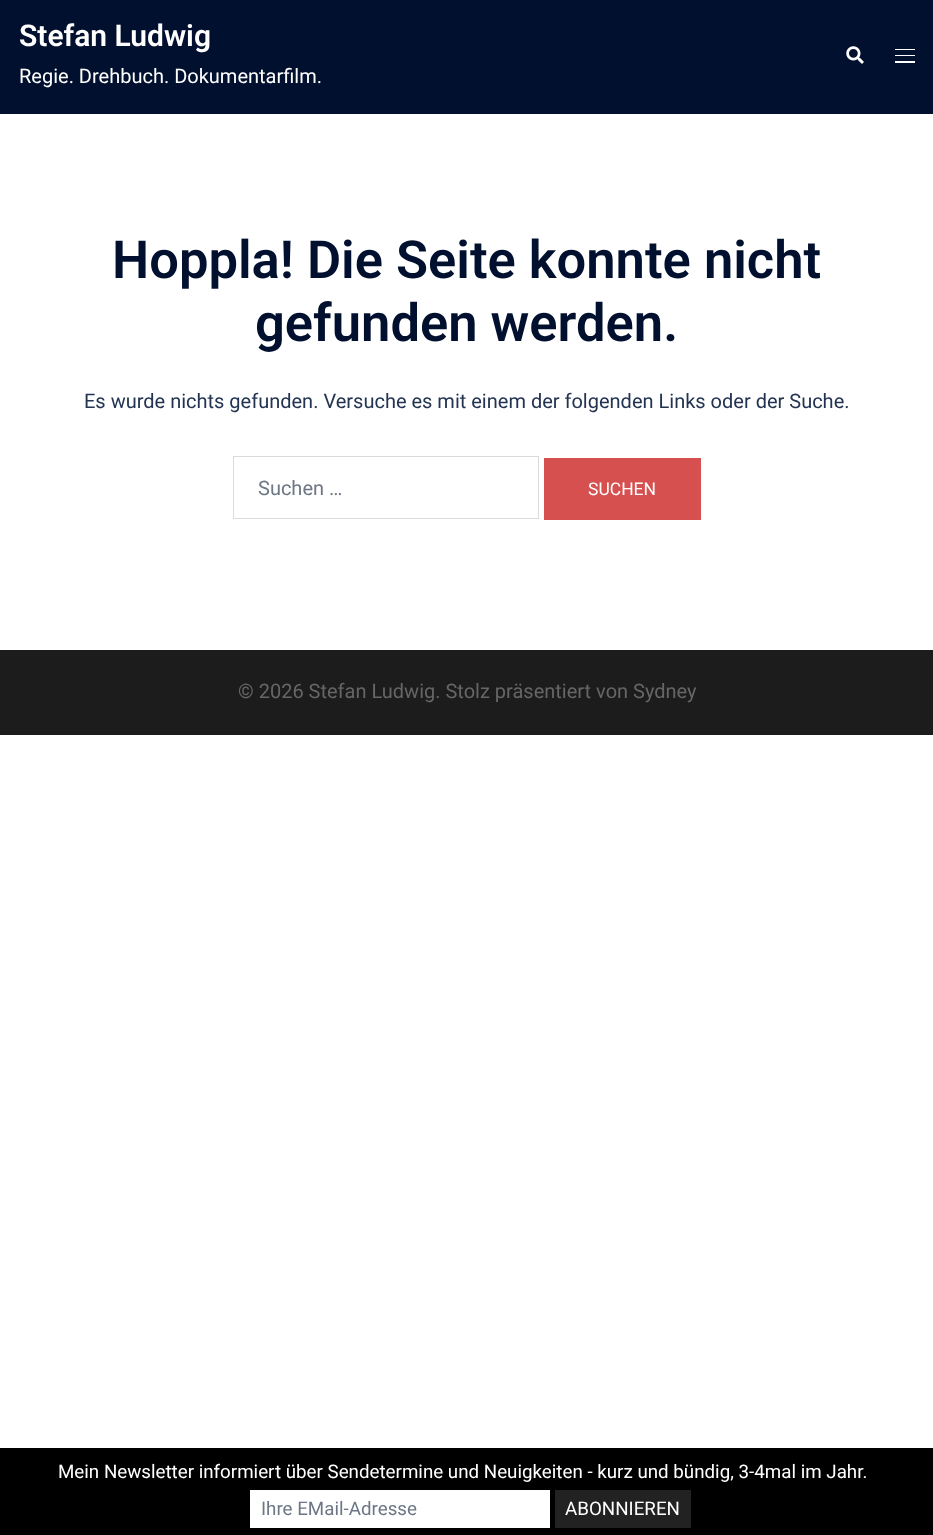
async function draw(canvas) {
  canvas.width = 933
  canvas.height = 1535
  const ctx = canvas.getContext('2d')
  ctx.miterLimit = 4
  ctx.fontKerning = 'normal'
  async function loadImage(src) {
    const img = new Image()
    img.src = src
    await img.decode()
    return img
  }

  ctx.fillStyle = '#fff'
  ctx.fillRect(0, 0, 933, 1535)
  ctx.fillStyle = '#00102e'
  ctx.fillRect(0, 0, 933, 114)
  ctx.font = '600 30px Roboto'
  ctx.fillStyle = '#fff'
  ctx.fillText('Stefan Ludwig', 19, 46)
  ctx.font = '20px Roboto'
  ctx.fillText('Regie. Drehbuch. Dokumentarfilm.', 19, 83)
  ctx.drawImage(await loadImage('image0.png'), 846, 46, 18, 18)
  ctx.fillRect(895, 49, 20, 1)
  ctx.fillRect(895, 55, 20, 1)
  ctx.fillRect(895, 61, 20, 2)
  ctx.font = '600 52.5px Roboto'
  ctx.fillStyle = '#00102e'
  ctx.fillText('Hoppla! Die Seite konnte nicht', 112, 278)
  ctx.fillText('gefunden werden.', 255, 341)
  ctx.font = '20px Roboto'
  ctx.fillStyle = '#233452'
  ctx.fillText('Es wurde nichts gefunden. Versuche es mit einem der folgenden Links oder der Suche.', 84, 408)
  ctx.strokeStyle = '#dbdbdb'
  ctx.strokeRect(233.5, 456.5, 305, 62)
  ctx.fillStyle = '#6d7685'
  ctx.fillText('Suchen …', 258, 495)
  ctx.fillStyle = '#d65050'
  ctx.fillRect(544, 458, 157, 62)
  ctx.font = '17.5px Roboto'
  ctx.fillStyle = '#fff'
  ctx.fillText('SUCHEN', 588, 495)
  ctx.fillStyle = '#1c1c1c'
  ctx.fillRect(0, 650, 933, 85)
  ctx.font = '20px Roboto'
  ctx.fillStyle = '#666'
  ctx.fillText('© 2026 Stefan Ludwig. Stolz präsentiert von Sydney', 238, 698)
  ctx.fillStyle = '#000'
  ctx.fillRect(0, 1448, 933, 87)
  ctx.font = '18.75px Roboto'
  ctx.fillStyle = '#fff'
  ctx.fillText('Mein Newsletter informiert über Sendetermine und Neuigkeiten - kurz und bündig, 3-4mal im Jahr.', 58, 1478)
  ctx.fillRect(250, 1490, 300, 38)
  ctx.fillStyle = '#6d7685'
  ctx.fillText('Ihre EMail-Adresse', 261, 1515)
  ctx.fillStyle = '#222'
  ctx.fillRect(555, 1490, 136, 38)
  ctx.fillStyle = '#fff'
  ctx.fillText('ABONNIEREN', 565, 1515)
}

draw(document.querySelector('canvas'))
